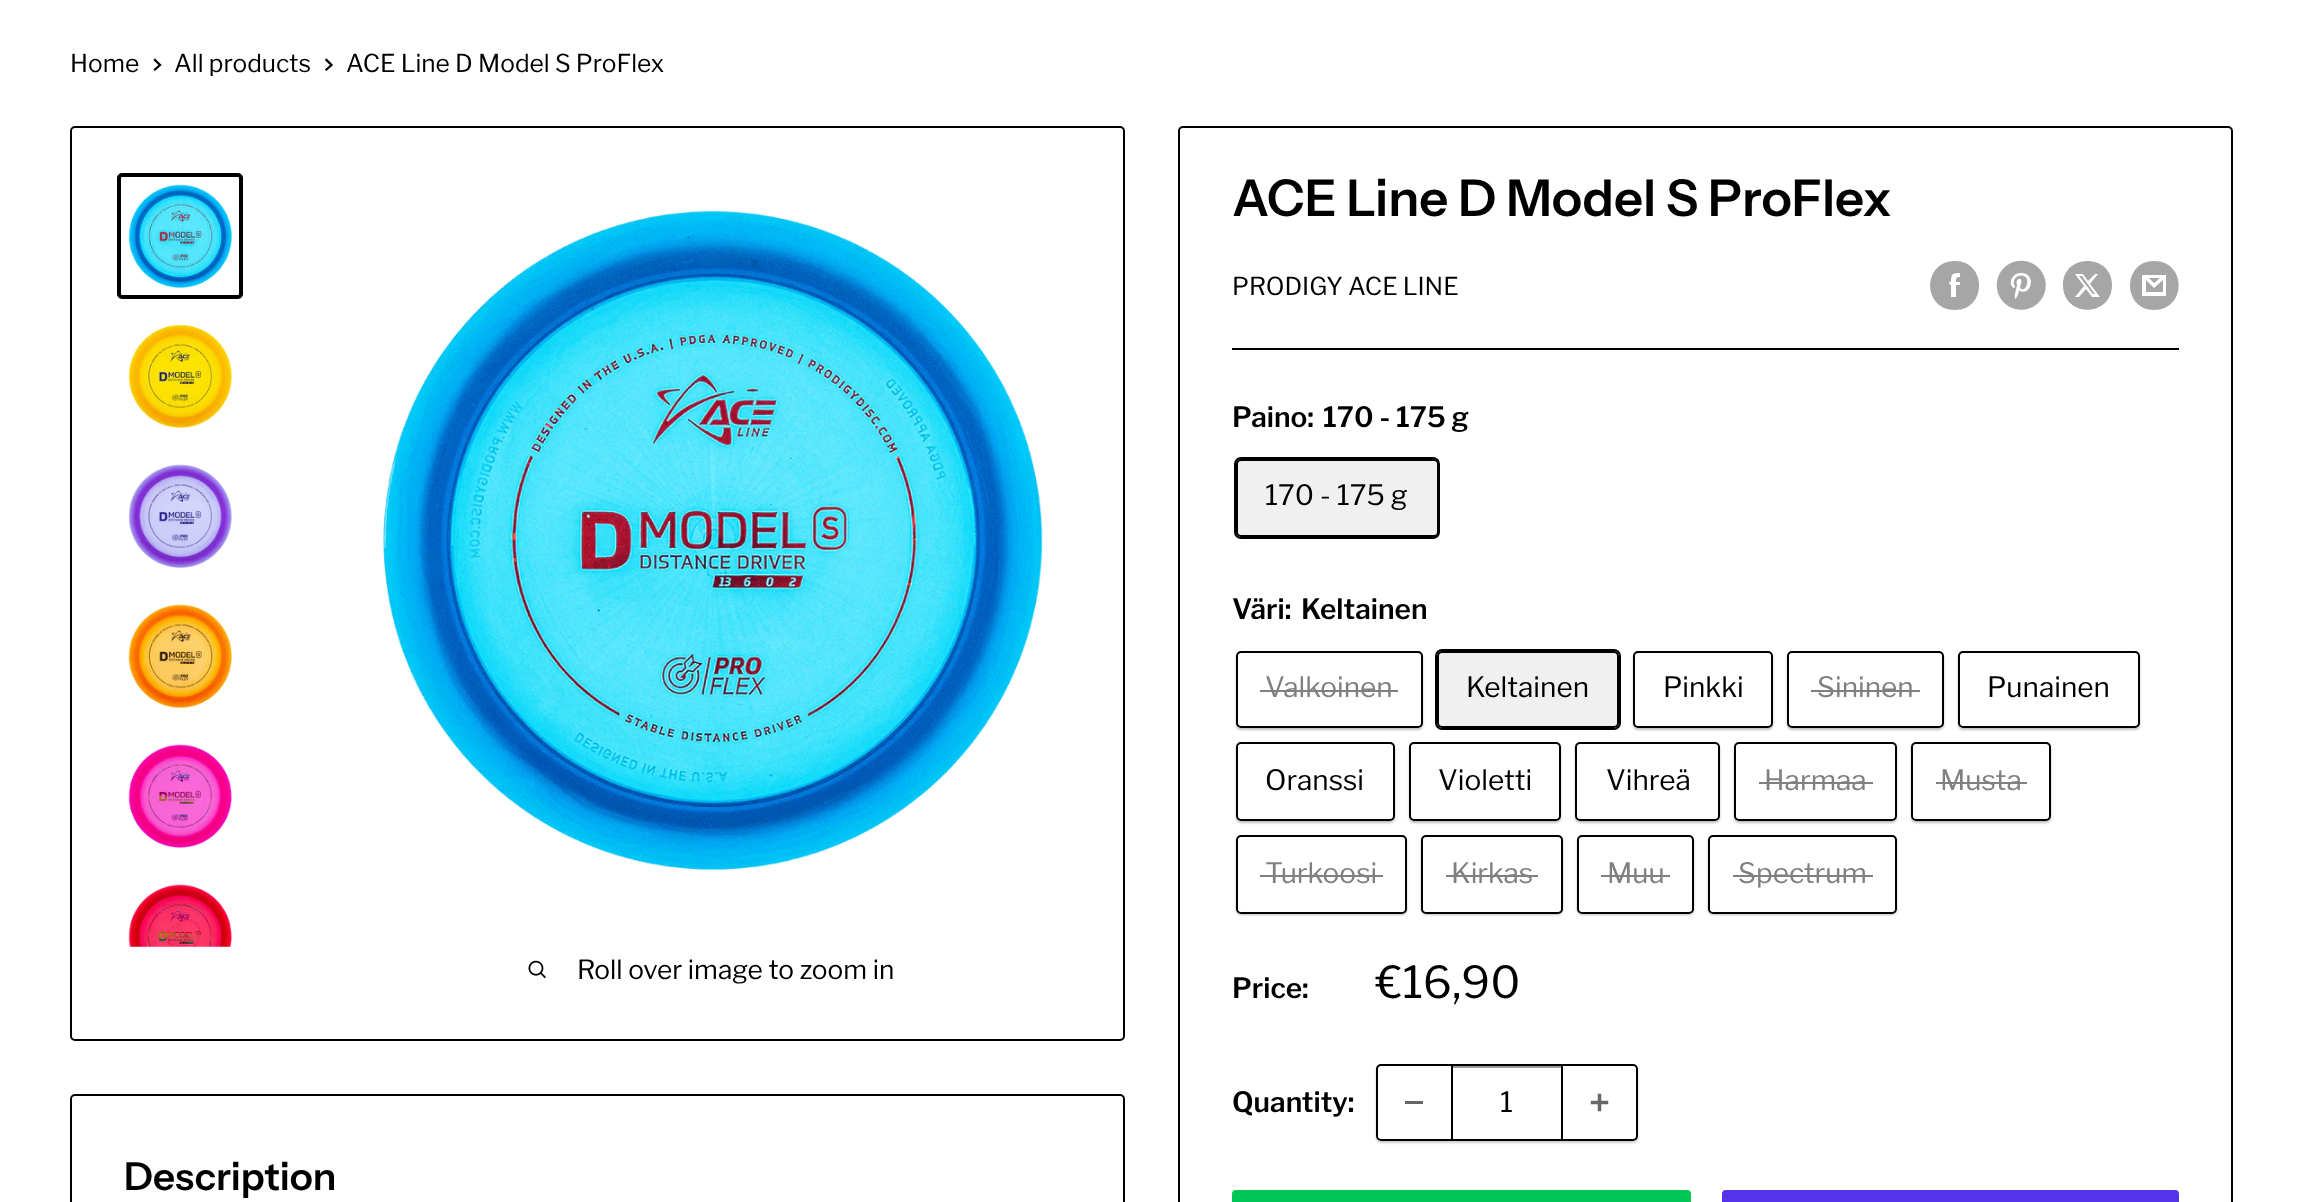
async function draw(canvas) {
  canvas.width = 2303
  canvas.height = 1202
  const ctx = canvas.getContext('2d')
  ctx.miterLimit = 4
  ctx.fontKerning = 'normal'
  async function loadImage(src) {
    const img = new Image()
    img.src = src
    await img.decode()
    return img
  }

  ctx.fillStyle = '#fff'
  ctx.fillRect(0, 0, 2303, 1202)
  ctx.font = '24.5px Libre Franklin'
  ctx.fillStyle = '#000'
  ctx.fillText('Home', 70, 72)
  ctx.beginPath()
  ctx.moveTo(155, 60)
  ctx.lineTo(160, 65)
  ctx.lineTo(155, 69.5)
  ctx.strokeStyle = '#000'
  ctx.lineWidth = 2.3
  ctx.lineCap = 'square'
  ctx.stroke()
  ctx.fillText('All products', 174, 72)
  ctx.beginPath()
  ctx.moveTo(326.5, 60)
  ctx.lineTo(331.5, 65)
  ctx.lineTo(326.5, 69.5)
  ctx.stroke()
  ctx.fillText('ACE Line D Model S ProFlex', 346, 72)
  ctx.beginPath()
  ctx.roundRect(71, 127, 1053, 913, 4)
  ctx.lineWidth = 2
  ctx.stroke()
  ctx.beginPath()
  ctx.roundRect(119, 175, 122, 122, 3)
  ctx.lineWidth = 4
  ctx.stroke()
  ctx.drawImage(await loadImage('image0.png'), 128, 184, 104, 104)
  ctx.drawImage(await loadImage('image1.png'), 128, 324, 104, 104)
  ctx.drawImage(await loadImage('image2.png'), 128, 464, 104, 104)
  ctx.drawImage(await loadImage('image3.png'), 128, 604, 104, 104)
  ctx.drawImage(await loadImage('image4.png'), 128, 744, 104, 104)
  ctx.drawImage(await loadImage('image5.png'), 128, 884, 104, 63)
  ctx.drawImage(await loadImage('image6.png'), 383, 210, 660, 660)
  ctx.drawImage(await loadImage('image7.png'), 528, 960, 18, 19)
  ctx.font = '26.25px Libre Franklin'
  ctx.fillText('Roll over image to zoom in', 577, 979)
  ctx.beginPath()
  ctx.roundRect(1179, 127, 1053, 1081, 4)
  ctx.lineWidth = 2
  ctx.stroke()
  ctx.font = '600 50.75px Instrument Sans'
  ctx.fillText('ACE Line D Model S ProFlex', 1232, 216)
  ctx.font = '24.5px Libre Franklin'
  ctx.fillText('PRODIGY ACE LINE', 1232, 295)
  ctx.fillStyle = '#a6a6a6'
  ctx.beginPath()
  ctx.moveTo(1955, 310)
  ctx.bezierCurveTo(1922, 310, 1922, 261, 1955, 261)
  ctx.bezierCurveTo(1987, 261, 1987, 310, 1955, 310)
  ctx.closePath()
  ctx.moveTo(1960, 282)
  ctx.lineTo(1956, 282)
  ctx.bezierCurveTo(1956, 278, 1956, 277, 1960, 277)
  ctx.lineTo(1960, 273)
  ctx.bezierCurveTo(1952, 273, 1951, 274, 1951, 282)
  ctx.lineTo(1949, 282)
  ctx.lineTo(1950, 285)
  ctx.lineTo(1951, 285)
  ctx.lineTo(1951, 297)
  ctx.lineTo(1956, 297)
  ctx.lineTo(1956, 285)
  ctx.lineTo(1960, 285)
  ctx.closePath()
  ctx.fill('evenodd')
  ctx.drawImage(await loadImage('image8.png'), 1996, 260, 50, 50)
  ctx.beginPath()
  ctx.moveTo(2112, 285)
  ctx.bezierCurveTo(2112, 318, 2063, 318, 2063, 285)
  ctx.bezierCurveTo(2063, 253, 2112, 253, 2112, 285)
  ctx.closePath()
  ctx.moveTo(2098, 274)
  ctx.lineTo(2095, 274)
  ctx.lineTo(2088, 281)
  ctx.lineTo(2083, 274)
  ctx.lineTo(2075, 274)
  ctx.lineTo(2084, 286)
  ctx.lineTo(2075, 297)
  ctx.lineTo(2079, 297)
  ctx.lineTo(2086, 289)
  ctx.lineTo(2092, 297)
  ctx.lineTo(2100, 297)
  ctx.lineTo(2090, 284)
  ctx.closePath()
  ctx.moveTo(2095, 294)
  ctx.lineTo(2093, 294)
  ctx.lineTo(2079, 276)
  ctx.lineTo(2082, 276)
  ctx.closePath()
  ctx.fill('evenodd')
  ctx.beginPath()
  ctx.moveTo(2154, 310)
  ctx.bezierCurveTo(2122, 310, 2122, 261, 2154, 261)
  ctx.bezierCurveTo(2187, 261, 2187, 310, 2154, 310)
  ctx.closePath()
  ctx.moveTo(2149, 278)
  ctx.lineTo(2160, 278)
  ctx.lineTo(2154, 283)
  ctx.closePath()
  ctx.moveTo(2163, 280)
  ctx.lineTo(2163, 292)
  ctx.lineTo(2146, 292)
  ctx.lineTo(2146, 280)
  ctx.lineTo(2154, 288)
  ctx.closePath()
  ctx.moveTo(2166, 275)
  ctx.lineTo(2142, 275)
  ctx.lineTo(2142, 296)
  ctx.lineTo(2166, 296)
  ctx.closePath()
  ctx.fill()
  ctx.fillStyle = '#000'
  ctx.fillRect(1232, 348, 947, 2)
  ctx.font = '600 28px Libre Franklin'
  ctx.fillText('Paino:', 1232, 427)
  ctx.fillText('170 - 175 g', 1323, 427)
  ctx.beginPath()
  ctx.roundRect(1235, 458, 204, 80, 6)
  ctx.stroke()
  ctx.fillStyle = '#0000000f'
  ctx.fillRect(1236, 459, 203, 78)
  ctx.beginPath()
  ctx.roundRect(1237, 460, 201, 76, 4)
  ctx.stroke()
  ctx.font = '28px Libre Franklin'
  ctx.fillStyle = '#000'
  ctx.fillText('170 - 175 g', 1265, 505)
  ctx.font = '600 28px Libre Franklin'
  ctx.fillText('Väri:', 1232, 619)
  ctx.fillText('Keltainen', 1301, 619)
  ctx.save()
  ctx.beginPath()
  ctx.moveTo(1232, 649)
  ctx.lineTo(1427, 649)
  ctx.lineTo(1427, 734)
  ctx.lineTo(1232, 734)
  ctx.closePath()
  ctx.moveTo(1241, 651)
  ctx.lineTo(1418, 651)
  ctx.bezierCurveTo(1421, 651, 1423, 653, 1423, 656)
  ctx.lineTo(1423, 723)
  ctx.bezierCurveTo(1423, 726, 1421, 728, 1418, 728)
  ctx.lineTo(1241, 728)
  ctx.bezierCurveTo(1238, 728, 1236, 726, 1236, 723)
  ctx.lineTo(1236, 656)
  ctx.bezierCurveTo(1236, 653, 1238, 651, 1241, 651)
  ctx.closePath()
  ctx.clip('evenodd')
  ctx.fillStyle = '#00000040'
  ctx.filter = 'blur(1px)'
  ctx.beginPath()
  ctx.roundRect(1236, 653, 187, 77, 5)
  ctx.fill()
  ctx.filter = 'none'
  ctx.restore()
  ctx.beginPath()
  ctx.roundRect(1237, 652, 185, 75, 4)
  ctx.stroke()
  ctx.font = '28px Libre Franklin'
  ctx.fillStyle = '#808080'
  ctx.fillText('Valkoinen', 1265, 697)
  ctx.fillRect(1260, 690, 138, 2)
  ctx.beginPath()
  ctx.roundRect(1436, 650, 184, 79, 6)
  ctx.stroke()
  ctx.fillStyle = '#0000000f'
  ctx.fillRect(1437, 651, 182, 77)
  ctx.beginPath()
  ctx.roundRect(1438, 652, 180, 75, 4)
  ctx.stroke()
  ctx.fillStyle = '#000'
  ctx.fillText('Keltainen', 1466, 697)
  ctx.save()
  ctx.beginPath()
  ctx.moveTo(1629, 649)
  ctx.lineTo(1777, 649)
  ctx.lineTo(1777, 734)
  ctx.lineTo(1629, 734)
  ctx.closePath()
  ctx.moveTo(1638, 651)
  ctx.lineTo(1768, 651)
  ctx.bezierCurveTo(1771, 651, 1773, 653, 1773, 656)
  ctx.lineTo(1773, 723)
  ctx.bezierCurveTo(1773, 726, 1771, 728, 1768, 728)
  ctx.lineTo(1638, 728)
  ctx.bezierCurveTo(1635, 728, 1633, 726, 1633, 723)
  ctx.lineTo(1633, 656)
  ctx.bezierCurveTo(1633, 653, 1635, 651, 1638, 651)
  ctx.closePath()
  ctx.clip('evenodd')
  ctx.fillStyle = '#00000040'
  ctx.filter = 'blur(1px)'
  ctx.beginPath()
  ctx.roundRect(1633, 653, 140, 77, 5)
  ctx.fill()
  ctx.filter = 'none'
  ctx.restore()
  ctx.beginPath()
  ctx.roundRect(1634, 652, 138, 75, 4)
  ctx.stroke()
  ctx.fillText('Pinkki', 1663, 697)
  ctx.save()
  ctx.beginPath()
  ctx.moveTo(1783, 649)
  ctx.lineTo(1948, 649)
  ctx.lineTo(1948, 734)
  ctx.lineTo(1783, 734)
  ctx.closePath()
  ctx.moveTo(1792, 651)
  ctx.lineTo(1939, 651)
  ctx.bezierCurveTo(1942, 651, 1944, 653, 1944, 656)
  ctx.lineTo(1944, 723)
  ctx.bezierCurveTo(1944, 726, 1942, 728, 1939, 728)
  ctx.lineTo(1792, 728)
  ctx.bezierCurveTo(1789, 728, 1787, 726, 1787, 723)
  ctx.lineTo(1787, 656)
  ctx.bezierCurveTo(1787, 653, 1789, 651, 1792, 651)
  ctx.closePath()
  ctx.clip('evenodd')
  ctx.fillStyle = '#00000040'
  ctx.filter = 'blur(1px)'
  ctx.beginPath()
  ctx.roundRect(1787, 653, 157, 77, 5)
  ctx.fill()
  ctx.filter = 'none'
  ctx.restore()
  ctx.beginPath()
  ctx.roundRect(1788, 652, 155, 75, 4)
  ctx.stroke()
  ctx.fillStyle = '#808080'
  ctx.fillText('Sininen', 1817, 697)
  ctx.fillRect(1811, 690, 109, 2)
  ctx.save()
  ctx.beginPath()
  ctx.moveTo(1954, 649)
  ctx.lineTo(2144, 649)
  ctx.lineTo(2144, 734)
  ctx.lineTo(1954, 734)
  ctx.closePath()
  ctx.moveTo(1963, 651)
  ctx.lineTo(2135, 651)
  ctx.bezierCurveTo(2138, 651, 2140, 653, 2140, 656)
  ctx.lineTo(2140, 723)
  ctx.bezierCurveTo(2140, 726, 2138, 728, 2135, 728)
  ctx.lineTo(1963, 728)
  ctx.bezierCurveTo(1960, 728, 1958, 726, 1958, 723)
  ctx.lineTo(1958, 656)
  ctx.bezierCurveTo(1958, 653, 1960, 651, 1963, 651)
  ctx.closePath()
  ctx.clip('evenodd')
  ctx.fillStyle = '#00000040'
  ctx.filter = 'blur(1px)'
  ctx.beginPath()
  ctx.roundRect(1958, 653, 182, 77, 5)
  ctx.fill()
  ctx.filter = 'none'
  ctx.restore()
  ctx.beginPath()
  ctx.roundRect(1959, 652, 180, 75, 4)
  ctx.stroke()
  ctx.fillStyle = '#000'
  ctx.fillText('Punainen', 1987, 697)
  ctx.save()
  ctx.beginPath()
  ctx.moveTo(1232, 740)
  ctx.lineTo(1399, 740)
  ctx.lineTo(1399, 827)
  ctx.lineTo(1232, 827)
  ctx.closePath()
  ctx.moveTo(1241, 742)
  ctx.lineTo(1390, 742)
  ctx.bezierCurveTo(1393, 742, 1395, 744, 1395, 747)
  ctx.lineTo(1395, 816)
  ctx.bezierCurveTo(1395, 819, 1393, 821, 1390, 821)
  ctx.lineTo(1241, 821)
  ctx.bezierCurveTo(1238, 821, 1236, 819, 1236, 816)
  ctx.lineTo(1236, 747)
  ctx.bezierCurveTo(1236, 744, 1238, 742, 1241, 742)
  ctx.closePath()
  ctx.clip('evenodd')
  ctx.fillStyle = '#00000040'
  ctx.filter = 'blur(1px)'
  ctx.beginPath()
  ctx.roundRect(1236, 744, 159, 79, 5)
  ctx.fill()
  ctx.filter = 'none'
  ctx.restore()
  ctx.beginPath()
  ctx.roundRect(1237, 743, 157, 77, 4)
  ctx.stroke()
  ctx.fillText('Oranssi', 1265, 790)
  ctx.save()
  ctx.beginPath()
  ctx.moveTo(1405, 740)
  ctx.lineTo(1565, 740)
  ctx.lineTo(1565, 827)
  ctx.lineTo(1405, 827)
  ctx.closePath()
  ctx.moveTo(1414, 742)
  ctx.lineTo(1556, 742)
  ctx.bezierCurveTo(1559, 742, 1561, 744, 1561, 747)
  ctx.lineTo(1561, 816)
  ctx.bezierCurveTo(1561, 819, 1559, 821, 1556, 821)
  ctx.lineTo(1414, 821)
  ctx.bezierCurveTo(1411, 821, 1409, 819, 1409, 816)
  ctx.lineTo(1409, 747)
  ctx.bezierCurveTo(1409, 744, 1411, 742, 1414, 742)
  ctx.closePath()
  ctx.clip('evenodd')
  ctx.fillStyle = '#00000040'
  ctx.filter = 'blur(1px)'
  ctx.beginPath()
  ctx.roundRect(1409, 744, 152, 79, 5)
  ctx.fill()
  ctx.filter = 'none'
  ctx.restore()
  ctx.beginPath()
  ctx.roundRect(1410, 743, 150, 77, 4)
  ctx.stroke()
  ctx.fillText('Violetti', 1438, 790)
  ctx.save()
  ctx.beginPath()
  ctx.moveTo(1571, 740)
  ctx.lineTo(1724, 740)
  ctx.lineTo(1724, 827)
  ctx.lineTo(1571, 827)
  ctx.closePath()
  ctx.moveTo(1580, 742)
  ctx.lineTo(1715, 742)
  ctx.bezierCurveTo(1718, 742, 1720, 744, 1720, 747)
  ctx.lineTo(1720, 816)
  ctx.bezierCurveTo(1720, 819, 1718, 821, 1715, 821)
  ctx.lineTo(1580, 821)
  ctx.bezierCurveTo(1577, 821, 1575, 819, 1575, 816)
  ctx.lineTo(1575, 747)
  ctx.bezierCurveTo(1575, 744, 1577, 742, 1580, 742)
  ctx.closePath()
  ctx.clip('evenodd')
  ctx.fillStyle = '#00000040'
  ctx.filter = 'blur(1px)'
  ctx.beginPath()
  ctx.roundRect(1575, 744, 145, 79, 5)
  ctx.fill()
  ctx.filter = 'none'
  ctx.restore()
  ctx.beginPath()
  ctx.roundRect(1576, 743, 143, 77, 4)
  ctx.stroke()
  ctx.fillText('Vihreä', 1606, 790)
  ctx.save()
  ctx.beginPath()
  ctx.moveTo(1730, 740)
  ctx.lineTo(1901, 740)
  ctx.lineTo(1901, 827)
  ctx.lineTo(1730, 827)
  ctx.closePath()
  ctx.moveTo(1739, 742)
  ctx.lineTo(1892, 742)
  ctx.bezierCurveTo(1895, 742, 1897, 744, 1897, 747)
  ctx.lineTo(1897, 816)
  ctx.bezierCurveTo(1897, 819, 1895, 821, 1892, 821)
  ctx.lineTo(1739, 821)
  ctx.bezierCurveTo(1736, 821, 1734, 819, 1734, 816)
  ctx.lineTo(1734, 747)
  ctx.bezierCurveTo(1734, 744, 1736, 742, 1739, 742)
  ctx.closePath()
  ctx.clip('evenodd')
  ctx.fillStyle = '#00000040'
  ctx.filter = 'blur(1px)'
  ctx.beginPath()
  ctx.roundRect(1734, 744, 163, 79, 5)
  ctx.fill()
  ctx.filter = 'none'
  ctx.restore()
  ctx.beginPath()
  ctx.roundRect(1735, 743, 161, 77, 4)
  ctx.stroke()
  ctx.fillStyle = '#808080'
  ctx.fillText('Harmaa', 1764, 790)
  ctx.fillRect(1759, 782, 114, 2)
  ctx.save()
  ctx.beginPath()
  ctx.moveTo(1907, 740)
  ctx.lineTo(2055, 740)
  ctx.lineTo(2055, 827)
  ctx.lineTo(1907, 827)
  ctx.closePath()
  ctx.moveTo(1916, 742)
  ctx.lineTo(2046, 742)
  ctx.bezierCurveTo(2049, 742, 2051, 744, 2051, 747)
  ctx.lineTo(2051, 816)
  ctx.bezierCurveTo(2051, 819, 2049, 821, 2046, 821)
  ctx.lineTo(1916, 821)
  ctx.bezierCurveTo(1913, 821, 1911, 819, 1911, 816)
  ctx.lineTo(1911, 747)
  ctx.bezierCurveTo(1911, 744, 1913, 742, 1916, 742)
  ctx.closePath()
  ctx.clip('evenodd')
  ctx.fillStyle = '#00000040'
  ctx.filter = 'blur(1px)'
  ctx.beginPath()
  ctx.roundRect(1911, 744, 140, 79, 5)
  ctx.fill()
  ctx.filter = 'none'
  ctx.restore()
  ctx.beginPath()
  ctx.roundRect(1912, 743, 138, 77, 4)
  ctx.stroke()
  ctx.fillText('Musta', 1940, 790)
  ctx.fillRect(1936, 782, 91, 2)
  ctx.save()
  ctx.beginPath()
  ctx.moveTo(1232, 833)
  ctx.lineTo(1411, 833)
  ctx.lineTo(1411, 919)
  ctx.lineTo(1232, 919)
  ctx.closePath()
  ctx.moveTo(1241, 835)
  ctx.lineTo(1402, 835)
  ctx.bezierCurveTo(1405, 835, 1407, 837, 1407, 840)
  ctx.lineTo(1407, 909)
  ctx.bezierCurveTo(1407, 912, 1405, 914, 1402, 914)
  ctx.lineTo(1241, 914)
  ctx.bezierCurveTo(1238, 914, 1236, 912, 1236, 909)
  ctx.lineTo(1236, 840)
  ctx.bezierCurveTo(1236, 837, 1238, 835, 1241, 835)
  ctx.closePath()
  ctx.clip('evenodd')
  ctx.fillStyle = '#00000040'
  ctx.filter = 'blur(1px)'
  ctx.beginPath()
  ctx.roundRect(1236, 837, 171, 78, 5)
  ctx.fill()
  ctx.filter = 'none'
  ctx.restore()
  ctx.beginPath()
  ctx.roundRect(1237, 836, 169, 77, 4)
  ctx.stroke()
  ctx.fillText('Turkoosi', 1265, 883)
  ctx.fillRect(1260, 875, 123, 2)
  ctx.save()
  ctx.beginPath()
  ctx.moveTo(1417, 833)
  ctx.lineTo(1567, 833)
  ctx.lineTo(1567, 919)
  ctx.lineTo(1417, 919)
  ctx.closePath()
  ctx.moveTo(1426, 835)
  ctx.lineTo(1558, 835)
  ctx.bezierCurveTo(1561, 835, 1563, 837, 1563, 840)
  ctx.lineTo(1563, 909)
  ctx.bezierCurveTo(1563, 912, 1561, 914, 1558, 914)
  ctx.lineTo(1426, 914)
  ctx.bezierCurveTo(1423, 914, 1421, 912, 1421, 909)
  ctx.lineTo(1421, 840)
  ctx.bezierCurveTo(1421, 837, 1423, 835, 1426, 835)
  ctx.closePath()
  ctx.clip('evenodd')
  ctx.fillStyle = '#00000040'
  ctx.filter = 'blur(1px)'
  ctx.beginPath()
  ctx.roundRect(1421, 837, 142, 78, 5)
  ctx.fill()
  ctx.filter = 'none'
  ctx.restore()
  ctx.beginPath()
  ctx.roundRect(1422, 836, 140, 77, 4)
  ctx.stroke()
  ctx.fillText('Kirkas', 1451, 883)
  ctx.fillRect(1446, 875, 92, 2)
  ctx.save()
  ctx.beginPath()
  ctx.moveTo(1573, 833)
  ctx.lineTo(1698, 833)
  ctx.lineTo(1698, 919)
  ctx.lineTo(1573, 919)
  ctx.closePath()
  ctx.moveTo(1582, 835)
  ctx.lineTo(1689, 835)
  ctx.bezierCurveTo(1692, 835, 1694, 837, 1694, 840)
  ctx.lineTo(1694, 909)
  ctx.bezierCurveTo(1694, 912, 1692, 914, 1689, 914)
  ctx.lineTo(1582, 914)
  ctx.bezierCurveTo(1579, 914, 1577, 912, 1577, 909)
  ctx.lineTo(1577, 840)
  ctx.bezierCurveTo(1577, 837, 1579, 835, 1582, 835)
  ctx.closePath()
  ctx.clip('evenodd')
  ctx.fillStyle = '#00000040'
  ctx.filter = 'blur(1px)'
  ctx.beginPath()
  ctx.roundRect(1577, 837, 117, 78, 5)
  ctx.fill()
  ctx.filter = 'none'
  ctx.restore()
  ctx.beginPath()
  ctx.roundRect(1578, 836, 115, 77, 4)
  ctx.stroke()
  ctx.fillText('Muu', 1607, 883)
  ctx.fillRect(1601, 875, 69, 2)
  ctx.save()
  ctx.beginPath()
  ctx.moveTo(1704, 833)
  ctx.lineTo(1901, 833)
  ctx.lineTo(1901, 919)
  ctx.lineTo(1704, 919)
  ctx.closePath()
  ctx.moveTo(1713, 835)
  ctx.lineTo(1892, 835)
  ctx.bezierCurveTo(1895, 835, 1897, 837, 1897, 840)
  ctx.lineTo(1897, 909)
  ctx.bezierCurveTo(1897, 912, 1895, 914, 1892, 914)
  ctx.lineTo(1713, 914)
  ctx.bezierCurveTo(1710, 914, 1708, 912, 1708, 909)
  ctx.lineTo(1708, 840)
  ctx.bezierCurveTo(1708, 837, 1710, 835, 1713, 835)
  ctx.closePath()
  ctx.clip('evenodd')
  ctx.fillStyle = '#00000040'
  ctx.filter = 'blur(1px)'
  ctx.beginPath()
  ctx.roundRect(1708, 837, 189, 78, 5)
  ctx.fill()
  ctx.filter = 'none'
  ctx.restore()
  ctx.beginPath()
  ctx.roundRect(1709, 836, 187, 77, 4)
  ctx.stroke()
  ctx.fillText('Spectrum', 1738, 883)
  ctx.fillRect(1733, 875, 140, 2)
  ctx.font = '600 28px Libre Franklin'
  ctx.fillStyle = '#000'
  ctx.fillText('Price:', 1232, 998)
  ctx.font = '44px Libre Franklin'
  ctx.fillText('€16,90', 1376, 998)
  ctx.font = '600 28px Libre Franklin'
  ctx.fillText('Quantity:', 1232, 1112)
  ctx.save()
  ctx.beginPath()
  ctx.moveTo(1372, 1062)
  ctx.lineTo(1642, 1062)
  ctx.lineTo(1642, 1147)
  ctx.lineTo(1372, 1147)
  ctx.closePath()
  ctx.moveTo(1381, 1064)
  ctx.lineTo(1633, 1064)
  ctx.bezierCurveTo(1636, 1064, 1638, 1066, 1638, 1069)
  ctx.lineTo(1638, 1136)
  ctx.bezierCurveTo(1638, 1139, 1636, 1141, 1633, 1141)
  ctx.lineTo(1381, 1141)
  ctx.bezierCurveTo(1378, 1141, 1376, 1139, 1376, 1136)
  ctx.lineTo(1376, 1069)
  ctx.bezierCurveTo(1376, 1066, 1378, 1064, 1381, 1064)
  ctx.closePath()
  ctx.clip('evenodd')
  ctx.fillStyle = '#00000033'
  ctx.filter = 'blur(1px)'
  ctx.beginPath()
  ctx.roundRect(1376, 1066, 262, 77, 5)
  ctx.fill()
  ctx.filter = 'none'
  ctx.restore()
  ctx.beginPath()
  ctx.roundRect(1377, 1065, 260, 75, 4)
  ctx.stroke()
  ctx.fillStyle = '#666'
  ctx.fillRect(1405, 1101, 18, 3)
  ctx.fillStyle = '#999'
  ctx.fillRect(1453, 1066, 108, 2)
  ctx.fillStyle = '#000'
  ctx.fillRect(1561, 1066, 2, 73)
  ctx.fillRect(1451, 1066, 2, 73)
  ctx.font = '28px Libre Franklin'
  ctx.fillText('1', 1500, 1112)
  ctx.drawImage(await loadImage('image9.png'), 1590, 1093, 19, 19)
  ctx.fillStyle = '#00c756'
  ctx.beginPath()
  ctx.roundRect(1232, 1190, 459, 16, 4)
  ctx.fill()
  ctx.fillStyle = '#5433eb'
  ctx.beginPath()
  ctx.roundRect(1722, 1190, 457, 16, 4)
  ctx.fill()
  ctx.beginPath()
  ctx.roundRect(71, 1095, 1053, 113, 4)
  ctx.stroke()
  ctx.font = '600 38.5px Instrument Sans'
  ctx.fillStyle = '#000'
  ctx.fillText('Description', 124, 1190)
}

draw(document.querySelector('canvas'))
